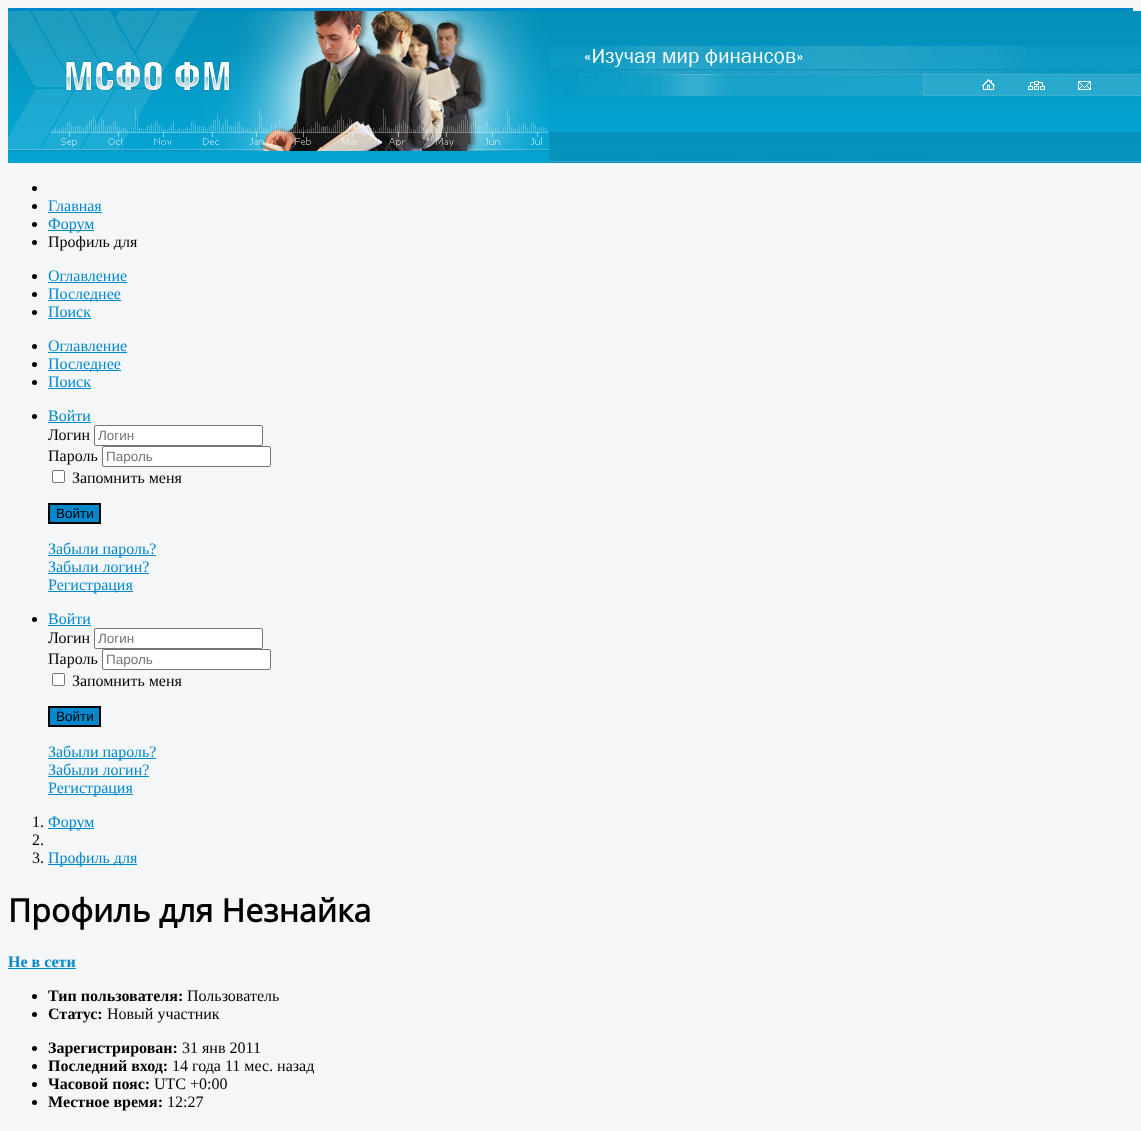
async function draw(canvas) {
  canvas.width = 1141
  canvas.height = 1131
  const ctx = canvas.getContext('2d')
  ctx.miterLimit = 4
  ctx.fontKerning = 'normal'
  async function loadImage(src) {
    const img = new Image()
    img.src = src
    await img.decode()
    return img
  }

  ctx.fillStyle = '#f4f6f7'
  ctx.fillRect(0, 0, 1141, 1131)
  ctx.fillStyle = '#08c'
  ctx.fillRect(8, 8, 1125, 3)
  ctx.drawImage(await loadImage('image0.png'), 8, 11, 1133, 152)
  ctx.drawImage(await loadImage('image1.png'), 8, 11, 540, 140)
  ctx.drawImage(await loadImage('image2.png'), 65, 61, 165, 30)
  ctx.fillStyle = '#43bcde'
  ctx.fillRect(548, 138, 1, 1)
  ctx.drawImage(await loadImage('image3.png'), 549, 45, 592, 28)
  ctx.drawImage(await loadImage('image4.png'), 584, 49, 219, 18)
  ctx.drawImage(await loadImage('image5.png'), 564, 73, 359, 24)
  ctx.drawImage(await loadImage('image6.png'), 923, 73, 218, 24)
  ctx.drawImage(await loadImage('image7.png'), 982, 79, 13, 11)
  ctx.drawImage(await loadImage('image8.png'), 1028, 81, 17, 9)
  ctx.drawImage(await loadImage('image9.png'), 1078, 81, 13, 9)
  ctx.drawImage(await loadImage('image10.png'), 549, 132, 592, 31)
  ctx.fillStyle = '#08c'
  ctx.fillRect(562, 154, 74, 1)
  ctx.fillRect(660, 154, 78, 1)
  ctx.fillRect(767, 154, 64, 1)
  ctx.fillRect(870, 154, 58, 1)
  ctx.fillStyle = '#000'
  ctx.beginPath()
  ctx.arc(34.5, 188.5, 2.5, 0, 2 * Math.PI)
  ctx.fill()
  ctx.beginPath()
  ctx.arc(34.5, 206.5, 2.5, 0, 2 * Math.PI)
  ctx.fill()
  ctx.font = '16px Liberation Serif'
  ctx.fillStyle = '#08c'
  ctx.fillText('Главная', 48, 211)
  ctx.fillRect(48, 212, 54, 1)
  ctx.fillStyle = '#000'
  ctx.beginPath()
  ctx.arc(34.5, 224.5, 2.5, 0, 2 * Math.PI)
  ctx.fill()
  ctx.fillStyle = '#08c'
  ctx.fillRect(48, 230, 46, 1)
  ctx.fillText('Форум', 48, 229)
  ctx.fillStyle = '#000'
  ctx.beginPath()
  ctx.arc(34.5, 242.5, 2.5, 0, 2 * Math.PI)
  ctx.fill()
  ctx.fillText('Профиль для', 48, 247)
  ctx.beginPath()
  ctx.arc(34.5, 276.5, 2.5, 0, 2 * Math.PI)
  ctx.fill()
  ctx.fillStyle = '#08c'
  ctx.fillText('Оглавление', 48, 281)
  ctx.fillRect(48, 282, 79, 1)
  ctx.fillStyle = '#000'
  ctx.beginPath()
  ctx.arc(34.5, 294.5, 2.5, 0, 2 * Math.PI)
  ctx.fill()
  ctx.fillStyle = '#08c'
  ctx.fillRect(48, 300, 73, 1)
  ctx.fillText('Последнее', 48, 299)
  ctx.fillStyle = '#000'
  ctx.beginPath()
  ctx.arc(34.5, 312.5, 2.5, 0, 2 * Math.PI)
  ctx.fill()
  ctx.fillStyle = '#08c'
  ctx.fillText('Поиск', 48, 317)
  ctx.fillRect(48, 318, 43, 1)
  ctx.fillStyle = '#000'
  ctx.beginPath()
  ctx.arc(34.5, 346.5, 2.5, 0, 2 * Math.PI)
  ctx.fill()
  ctx.fillStyle = '#08c'
  ctx.fillText('Оглавление', 48, 351)
  ctx.fillRect(48, 352, 79, 1)
  ctx.fillStyle = '#000'
  ctx.beginPath()
  ctx.arc(34.5, 364.5, 2.5, 0, 2 * Math.PI)
  ctx.fill()
  ctx.fillStyle = '#08c'
  ctx.fillRect(48, 370, 73, 1)
  ctx.fillText('Последнее', 48, 369)
  ctx.fillStyle = '#000'
  ctx.beginPath()
  ctx.arc(34.5, 382.5, 2.5, 0, 2 * Math.PI)
  ctx.fill()
  ctx.fillStyle = '#08c'
  ctx.fillText('Поиск', 48, 387)
  ctx.fillRect(48, 388, 43, 1)
  ctx.fillStyle = '#000'
  ctx.beginPath()
  ctx.arc(34.5, 416.5, 2.5, 0, 2 * Math.PI)
  ctx.fill()
  ctx.fillStyle = '#08c'
  ctx.fillText('Войти', 48, 421)
  ctx.fillRect(48, 422, 43, 1)
  ctx.fillStyle = '#000'
  ctx.fillText('Логин', 48, 440)
  ctx.fillStyle = '#fff'
  ctx.beginPath()
  ctx.roundRect(94.5, 425.5, 168, 20, 1.5)
  ctx.fill()
  ctx.strokeStyle = '#767676'
  ctx.stroke()
  ctx.font = '13.5px Liberation Sans'
  ctx.fillStyle = '#757575'
  ctx.fillText('Логин', 98, 440)
  ctx.font = '16px Liberation Serif'
  ctx.fillStyle = '#000'
  ctx.fillText('Пароль', 48, 461)
  ctx.fillStyle = '#fff'
  ctx.beginPath()
  ctx.roundRect(102.5, 446.5, 168, 20, 1.5)
  ctx.fill()
  ctx.stroke()
  ctx.font = '13.5px Liberation Sans'
  ctx.fillStyle = '#757575'
  ctx.fillText('Пароль', 106, 461)
  ctx.fillStyle = '#fff'
  ctx.beginPath()
  ctx.roundRect(52.5, 470.5, 12, 12, 1.5)
  ctx.fill()
  ctx.stroke()
  ctx.font = '16px Liberation Serif'
  ctx.fillStyle = '#000'
  ctx.fillText('Запомнить меня', 72, 483)
  ctx.fillStyle = '#08c'
  ctx.beginPath()
  ctx.rect(49, 504, 51, 19)
  ctx.fill()
  ctx.strokeStyle = '#000'
  ctx.lineWidth = 2
  ctx.stroke()
  ctx.font = '13.5px Liberation Sans'
  ctx.fillStyle = '#000'
  ctx.fillText('Войти', 56, 518)
  ctx.fillStyle = '#08c'
  ctx.fillRect(48, 555, 108, 1)
  ctx.font = '16px Liberation Serif'
  ctx.fillText('Забыли пароль?', 48, 554)
  ctx.fillText('Забыли логин?', 48, 572)
  ctx.fillRect(48, 573, 101, 1)
  ctx.fillRect(48, 591, 85, 1)
  ctx.fillText('Регистрация', 48, 590)
  ctx.fillStyle = '#000'
  ctx.beginPath()
  ctx.arc(34.5, 619.5, 2.5, 0, 2 * Math.PI)
  ctx.fill()
  ctx.fillStyle = '#08c'
  ctx.fillText('Войти', 48, 624)
  ctx.fillRect(48, 625, 43, 1)
  ctx.fillStyle = '#000'
  ctx.fillText('Логин', 48, 643)
  ctx.fillStyle = '#fff'
  ctx.beginPath()
  ctx.roundRect(94.5, 628.5, 168, 20, 1.5)
  ctx.fill()
  ctx.strokeStyle = '#767676'
  ctx.lineWidth = 1
  ctx.stroke()
  ctx.font = '13.5px Liberation Sans'
  ctx.fillStyle = '#757575'
  ctx.fillText('Логин', 98, 643)
  ctx.font = '16px Liberation Serif'
  ctx.fillStyle = '#000'
  ctx.fillText('Пароль', 48, 664)
  ctx.fillStyle = '#fff'
  ctx.beginPath()
  ctx.roundRect(102.5, 649.5, 168, 20, 1.5)
  ctx.fill()
  ctx.stroke()
  ctx.font = '13.5px Liberation Sans'
  ctx.fillStyle = '#757575'
  ctx.fillText('Пароль', 106, 664)
  ctx.fillStyle = '#fff'
  ctx.beginPath()
  ctx.roundRect(52.5, 673.5, 12, 12, 1.5)
  ctx.fill()
  ctx.stroke()
  ctx.font = '16px Liberation Serif'
  ctx.fillStyle = '#000'
  ctx.fillText('Запомнить меня', 72, 686)
  ctx.fillStyle = '#08c'
  ctx.beginPath()
  ctx.rect(49, 707, 51, 19)
  ctx.fill()
  ctx.strokeStyle = '#000'
  ctx.lineWidth = 2
  ctx.stroke()
  ctx.font = '13.5px Liberation Sans'
  ctx.fillStyle = '#000'
  ctx.fillText('Войти', 56, 721)
  ctx.fillStyle = '#08c'
  ctx.fillRect(48, 758, 108, 1)
  ctx.font = '16px Liberation Serif'
  ctx.fillText('Забыли пароль?', 48, 757)
  ctx.fillText('Забыли логин?', 48, 775)
  ctx.fillRect(48, 776, 101, 1)
  ctx.fillRect(48, 794, 85, 1)
  ctx.fillText('Регистрация', 48, 793)
  ctx.fillStyle = '#000'
  ctx.fillText('1.', 32, 827)
  ctx.fillStyle = '#08c'
  ctx.fillRect(48, 828, 46, 1)
  ctx.fillText('Форум', 48, 827)
  ctx.fillStyle = '#000'
  ctx.fillText('2.', 32, 845)
  ctx.fillText('3.', 32, 863)
  ctx.fillStyle = '#08c'
  ctx.fillRect(48, 864, 89, 1)
  ctx.fillText('Профиль для', 48, 863)
  ctx.font = 'bold 32px Open Sans'
  ctx.fillStyle = '#000'
  ctx.fillText('Профиль для Незнайка', 8, 922)
  ctx.font = 'bold 16px Liberation Serif'
  ctx.fillStyle = '#08c'
  ctx.fillText('Не в сети', 8, 967)
  ctx.fillRect(8, 968, 68, 1)
  ctx.fillStyle = '#000'
  ctx.beginPath()
  ctx.arc(34.5, 996.5, 2.5, 0, 2 * Math.PI)
  ctx.fill()
  ctx.fillText('Тип пользователя:', 48, 1001)
  ctx.font = '16px Liberation Serif'
  ctx.fillText('Пользователь', 187, 1001)
  ctx.beginPath()
  ctx.arc(34.5, 1014.5, 2.5, 0, 2 * Math.PI)
  ctx.fill()
  ctx.font = 'bold 16px Liberation Serif'
  ctx.fillText('Статус:', 48, 1019)
  ctx.font = '16px Liberation Serif'
  ctx.fillText('Новый участник', 107, 1019)
  ctx.beginPath()
  ctx.arc(34.5, 1048.5, 2.5, 0, 2 * Math.PI)
  ctx.fill()
  ctx.font = 'bold 16px Liberation Serif'
  ctx.fillText('Зарегистрирован:', 48, 1053)
  ctx.font = '16px Liberation Serif'
  ctx.fillText('31 янв 2011', 182, 1053)
  ctx.beginPath()
  ctx.arc(34.5, 1066.5, 2.5, 0, 2 * Math.PI)
  ctx.fill()
  ctx.font = 'bold 16px Liberation Serif'
  ctx.fillText('Последний вход:', 48, 1071)
  ctx.font = '16px Liberation Serif'
  ctx.fillText('14 года 11 мес. назад', 172, 1071)
  ctx.beginPath()
  ctx.arc(34.5, 1084.5, 2.5, 0, 2 * Math.PI)
  ctx.fill()
  ctx.font = 'bold 16px Liberation Serif'
  ctx.fillText('Часовой пояс:', 48, 1089)
  ctx.font = '16px Liberation Serif'
  ctx.fillText('UTC +0:00', 154, 1089)
  ctx.beginPath()
  ctx.arc(34.5, 1102.5, 2.5, 0, 2 * Math.PI)
  ctx.fill()
  ctx.font = 'bold 16px Liberation Serif'
  ctx.fillText('Местное время:', 48, 1107)
  ctx.font = '16px Liberation Serif'
  ctx.fillText('12:27', 167, 1107)
}

draw(document.querySelector('canvas'))
